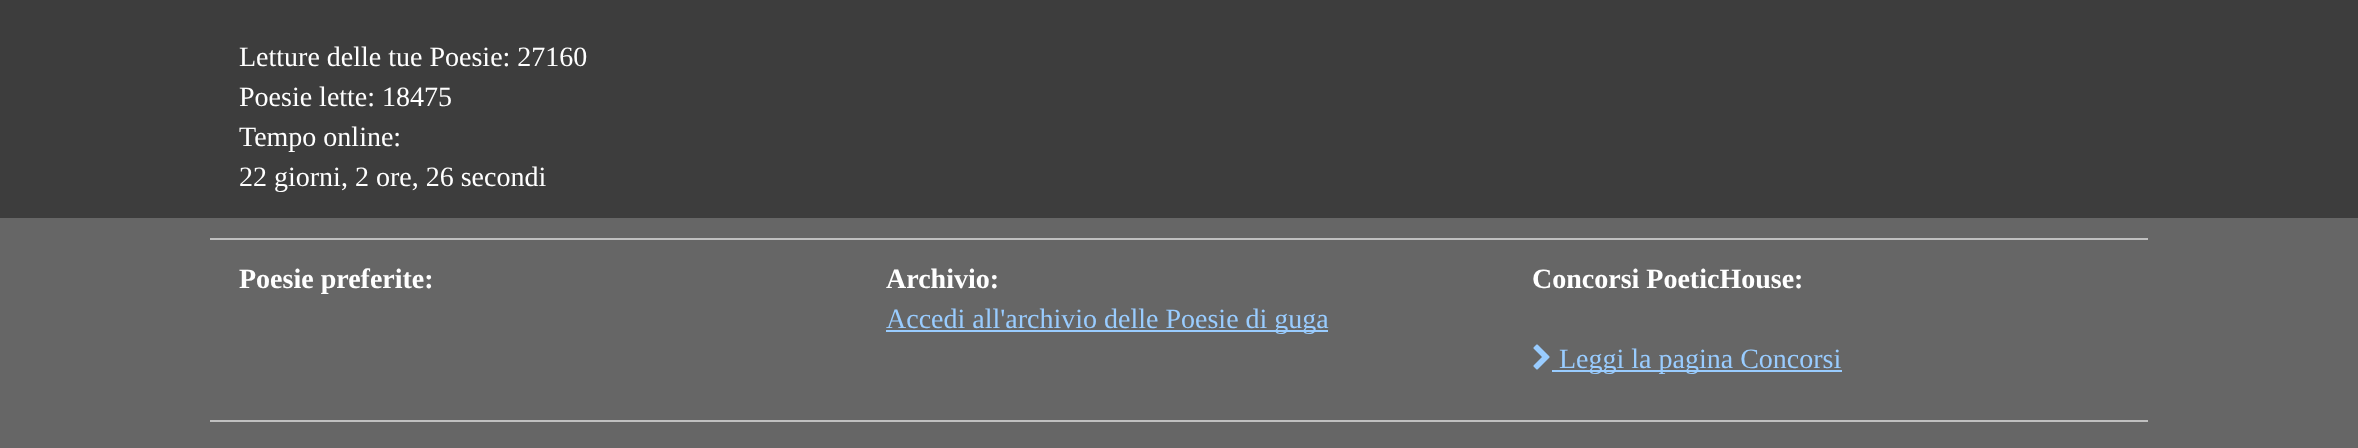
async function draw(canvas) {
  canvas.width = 2358
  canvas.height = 448
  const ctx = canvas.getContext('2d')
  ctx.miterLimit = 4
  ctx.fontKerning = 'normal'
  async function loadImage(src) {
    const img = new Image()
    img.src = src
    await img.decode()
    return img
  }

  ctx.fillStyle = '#666'
  ctx.fillRect(0, 0, 2358, 448)
  ctx.fillStyle = '#3d3d3d'
  ctx.fillRect(0, 0, 2358, 218)
  ctx.font = '28px Liberation Serif'
  ctx.fillStyle = '#fff'
  ctx.fillText('Letture delle tue Poesie: 27160', 239, 66)
  ctx.fillText('Poesie lette: 18475', 239, 106)
  ctx.fillText('Tempo online:', 239, 146)
  ctx.fillText('22 giorni, 2 ore, 26 secondi', 239, 186)
  ctx.fillStyle = '#c0c0c0'
  ctx.fillRect(210, 238, 1938, 2)
  ctx.font = 'bold 28px Liberation Serif'
  ctx.fillStyle = '#fff'
  ctx.fillText('Poesie preferite:', 239, 288)
  ctx.fillText('Archivio:', 886, 288)
  ctx.fillStyle = '#9cf'
  ctx.fillRect(886, 330, 442, 2)
  ctx.font = '28px Liberation Serif'
  ctx.fillText('Accedi all\'archivio delle Poesie di guga', 886, 328)
  ctx.font = 'bold 28px Liberation Serif'
  ctx.fillStyle = '#fff'
  ctx.fillText('Concorsi PoeticHouse:', 1532, 288)
  ctx.drawImage(await loadImage('image0.png'), 1533, 344, 17, 26)
  ctx.fillStyle = '#9cf'
  ctx.fillRect(1552, 370, 290, 2)
  ctx.font = '28px Liberation Serif'
  ctx.fillText('Leggi la pagina Concorsi', 1559, 368)
  ctx.fillStyle = '#c0c0c0'
  ctx.fillRect(210, 420, 1938, 2)
}

draw(document.querySelector('canvas'))
